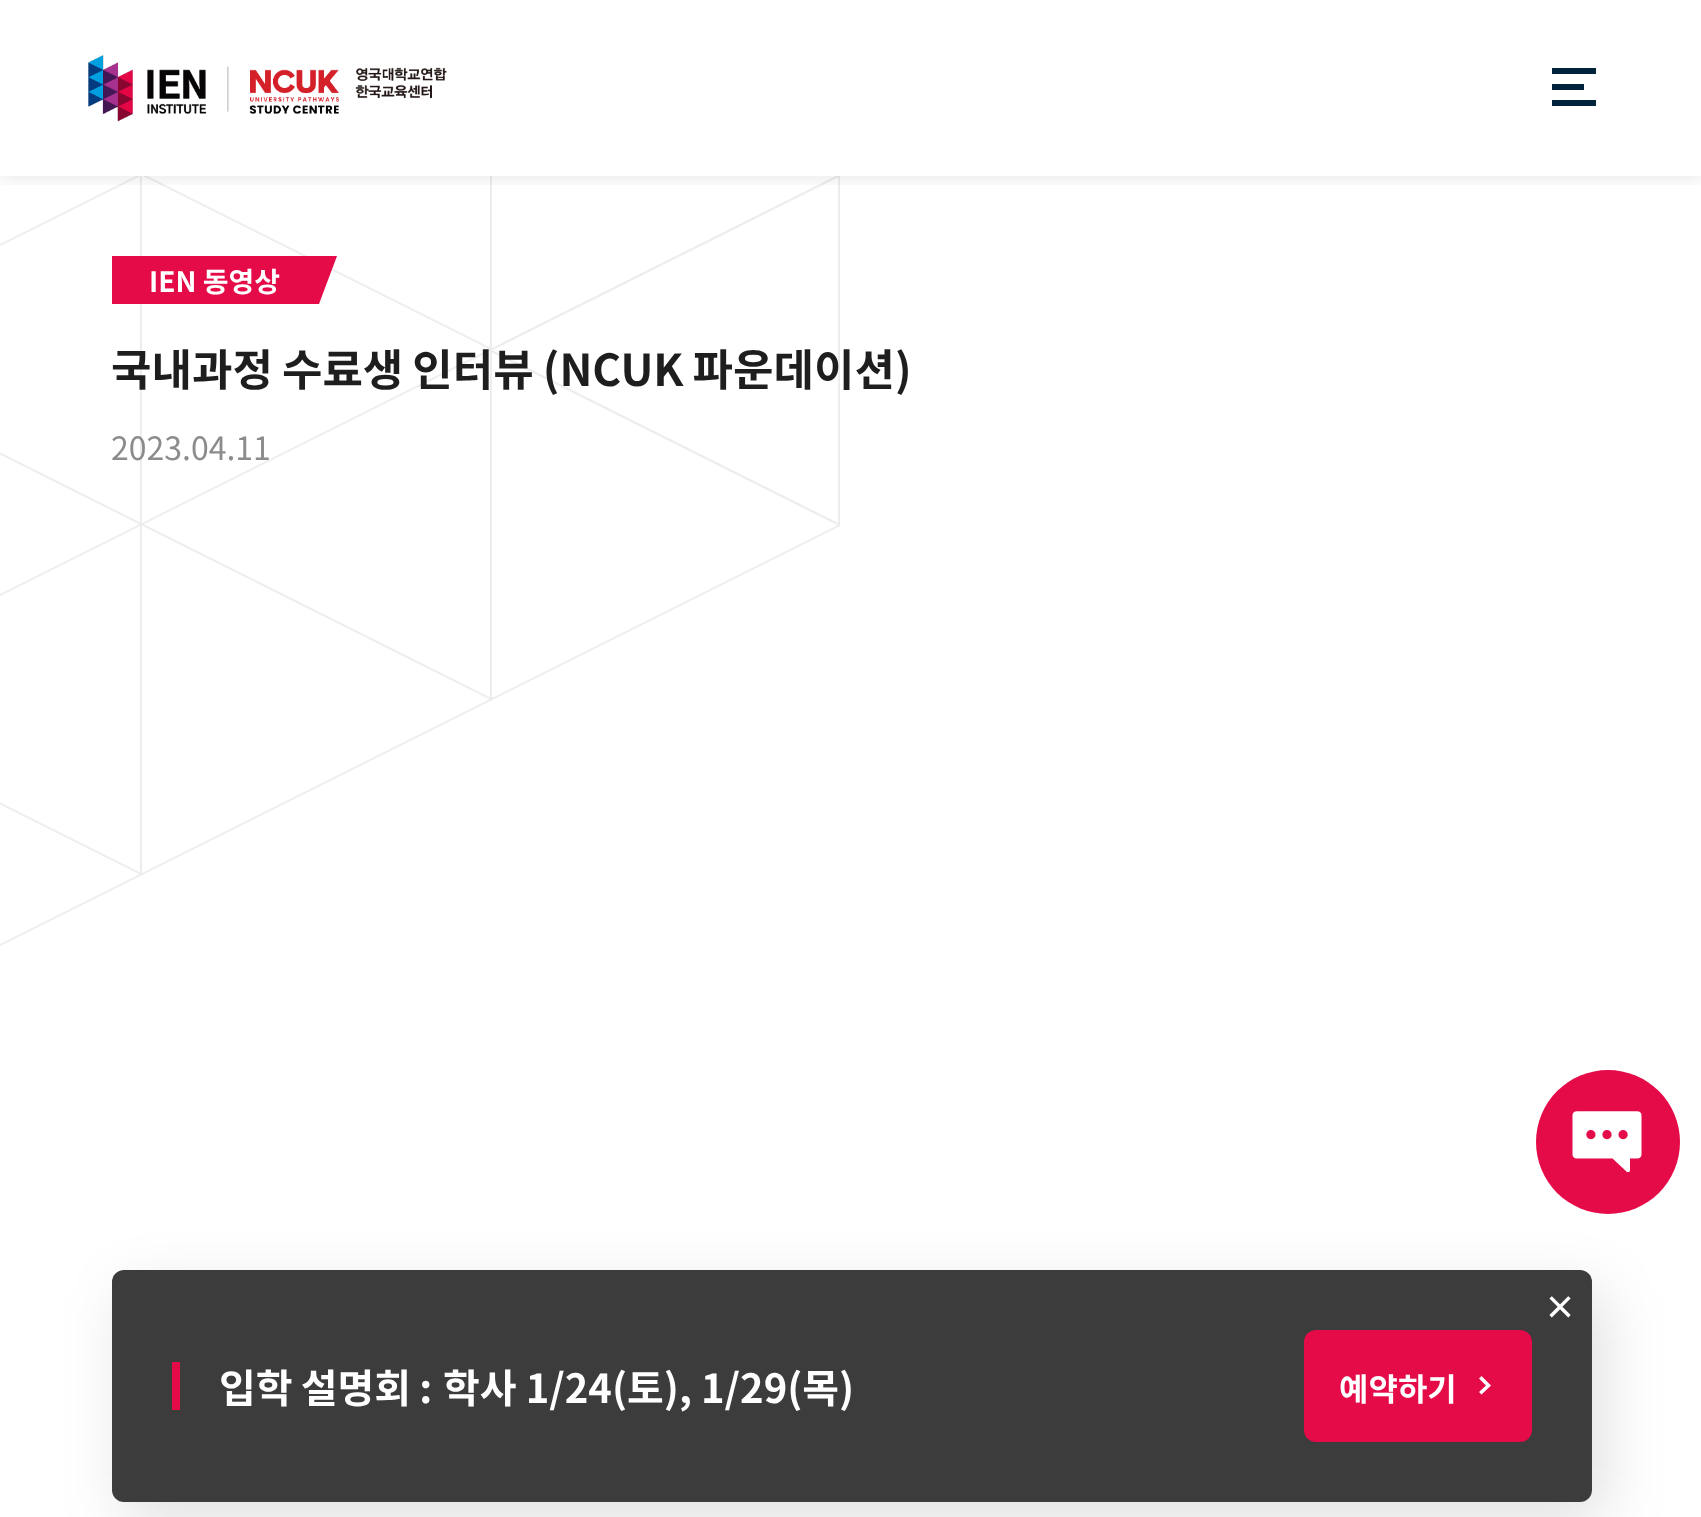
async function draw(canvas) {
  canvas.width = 1701
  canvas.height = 1517
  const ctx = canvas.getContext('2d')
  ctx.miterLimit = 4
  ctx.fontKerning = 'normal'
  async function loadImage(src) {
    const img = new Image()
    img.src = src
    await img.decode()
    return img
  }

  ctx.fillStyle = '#fff'
  ctx.fillRect(0, 0, 1701, 1517)
  ctx.drawImage(await loadImage('image1.png'), 0, 176, 840, 770)
  ctx.save()
  ctx.beginPath()
  ctx.rect(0, 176, 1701, 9)
  ctx.clip()
  ctx.fillStyle = '#00000014'
  ctx.filter = 'blur(8px)'
  ctx.beginPath()
  ctx.rect(0, 4, 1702, 176)
  ctx.fill()
  ctx.filter = 'none'
  ctx.restore()
  ctx.drawImage(await loadImage('image0.png'), 88, 55, 359, 67)
  ctx.fillStyle = '#00233d'
  ctx.fillRect(1552, 68, 44, 6)
  ctx.fillRect(1552, 84, 32, 6)
  ctx.fillRect(1552, 100, 44, 6)
  ctx.save()
  ctx.beginPath()
  ctx.rect(112, 256, 1480, 1090)
  ctx.clip()
  ctx.fillStyle = '#e50a48'
  ctx.beginPath()
  ctx.moveTo(110, 256)
  ctx.lineTo(337, 256)
  ctx.lineTo(319, 304)
  ctx.lineTo(92, 304)
  ctx.closePath()
  ctx.fill()
  ctx.restore()
  ctx.font = 'bold 28px Noto Sans CJK KR'
  ctx.fillStyle = '#fff'
  ctx.fillText('IEN 동영상', 149, 292)
  ctx.wordSpacing = '-1px'
  ctx.font = 'bold 44px Noto Sans CJK KR'
  ctx.fillStyle = '#1e1e1e'
  ctx.fillText('국내과정 수료생 인터뷰 (NCUK 파운데이션)', 111, 386)
  ctx.wordSpacing = '0px'
  ctx.font = '32px Noto Sans CJK KR'
  ctx.fillStyle = '#8c8c8c'
  ctx.fillText('2023.04.11', 111, 460)
  ctx.fillStyle = '#0000001f'
  ctx.filter = 'blur(30px)'
  ctx.beginPath()
  ctx.roundRect(124, 1290, 1480, 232, 12)
  ctx.fill()
  ctx.filter = 'none'
  ctx.fillStyle = '#e50a48'
  ctx.beginPath()
  ctx.arc(1608, 1142, 72, 0, 2 * Math.PI)
  ctx.fill()
  ctx.drawImage(await loadImage('image2.png'), 1572, 1111, 70, 62)
  ctx.fillStyle = '#3c3c3c'
  ctx.beginPath()
  ctx.roundRect(112, 1270, 1480, 232, 12)
  ctx.fill()
  ctx.font = 'bold 32px Noto Sans CJK KR'
  ctx.fillStyle = '#fff'
  ctx.fillText('×', 1544, 1319)
  ctx.fillStyle = '#e50a48'
  ctx.fillRect(172, 1362, 8, 48)
  ctx.wordSpacing = '-1px'
  ctx.font = 'bold 40px Noto Sans CJK KR'
  ctx.fillStyle = '#fff'
  ctx.fillText('입학 설명회 :', 219, 1403)
  ctx.wordSpacing = '0px'
  ctx.fillText('학사 1/24(토), 1/29(목)', 443, 1403)
  ctx.fillStyle = '#e50a48'
  ctx.beginPath()
  ctx.roundRect(1304, 1330, 228, 112, 12)
  ctx.fill()
  ctx.font = 'bold 32px Noto Sans CJK KR'
  ctx.fillStyle = '#fff'
  ctx.fillText('예약하기', 1339, 1401)
  ctx.beginPath()
  ctx.moveTo(1481.5, 1394.5)
  ctx.lineTo(1479, 1392)
  ctx.lineTo(1486, 1385.5)
  ctx.lineTo(1479, 1378.5)
  ctx.lineTo(1481.5, 1376)
  ctx.lineTo(1491, 1385.5)
  ctx.closePath()
  ctx.fill()
}

draw(document.querySelector('canvas'))
